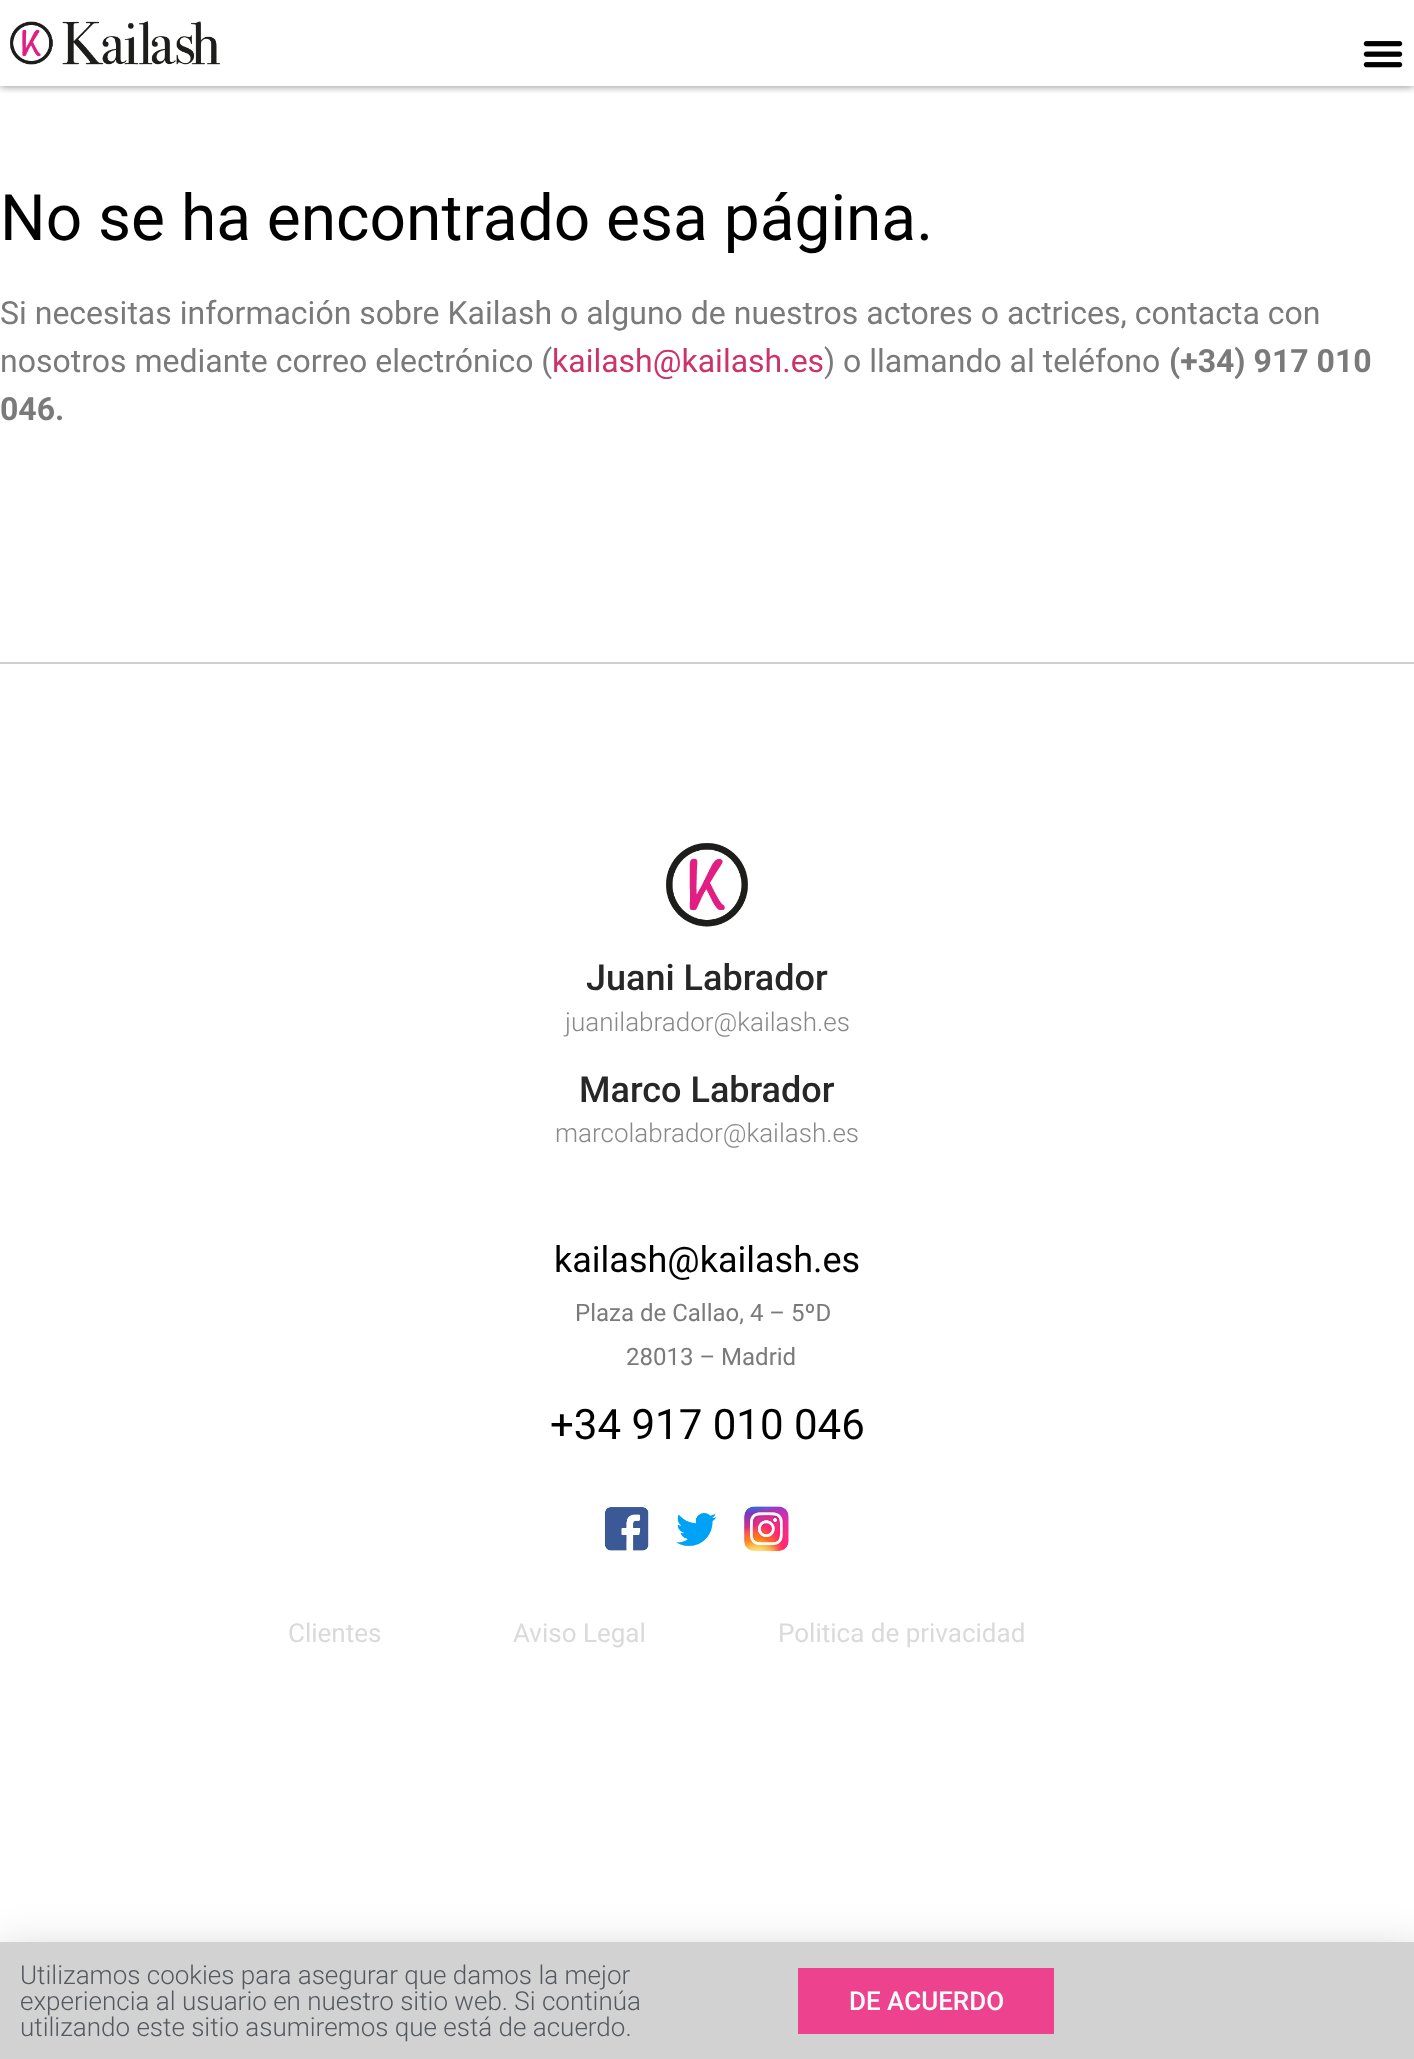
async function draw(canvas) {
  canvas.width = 1414
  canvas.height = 2059
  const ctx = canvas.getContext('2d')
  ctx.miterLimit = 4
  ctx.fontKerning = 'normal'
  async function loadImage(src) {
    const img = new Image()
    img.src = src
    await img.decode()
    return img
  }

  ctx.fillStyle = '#fff'
  ctx.fillRect(0, 0, 1414, 2059)
  ctx.save()
  ctx.beginPath()
  ctx.rect(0, 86, 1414, 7)
  ctx.clip()
  ctx.fillStyle = '#00000080'
  ctx.filter = 'blur(4px)'
  ctx.beginPath()
  ctx.rect(0, 0, 1414, 86)
  ctx.fill()
  ctx.filter = 'none'
  ctx.restore()
  ctx.drawImage(await loadImage('image0.png'), 10, 21, 210, 44)
  ctx.drawImage(await loadImage('image1.png'), 1363, 41, 40, 27)
  ctx.font = '64px Roboto'
  ctx.fillStyle = '#000'
  ctx.fillText('No se ha encontrado esa página.', 0, 240)
  ctx.font = '32px Roboto'
  ctx.fillStyle = '#7a7a7a'
  ctx.fillText('Si necesitas información sobre Kailash o alguno de nuestros actores o actrices, contacta con', 0, 324)
  ctx.fillText('nosotros mediante correo electrónico (', 0, 372)
  ctx.fillStyle = '#c36'
  ctx.fillText('kailash@kailash.es', 552, 372)
  ctx.fillStyle = '#7a7a7a'
  ctx.fillText(') o llamando al teléfono', 824, 372)
  ctx.font = 'bold 32px Roboto'
  ctx.fillText('(+34) 917 010', 1169, 372)
  ctx.fillText('046.', 0, 420)
  ctx.fillStyle = '#cecece'
  ctx.fillRect(0, 662, 1414, 2)
  ctx.drawImage(await loadImage('image2.png'), 666, 843, 82, 84)
  ctx.font = '500 36px Roboto'
  ctx.fillStyle = '#272727'
  ctx.fillText('Juani Labrador', 586, 990)
  ctx.font = '300 26px Roboto'
  ctx.fillStyle = '#888'
  ctx.fillText('juanilabrador@kailash.es', 565, 1031)
  ctx.font = '500 36px Roboto'
  ctx.fillStyle = '#272727'
  ctx.fillText('Marco Labrador', 579, 1102)
  ctx.font = '300 26px Roboto'
  ctx.fillStyle = '#888'
  ctx.fillText('marcolabrador@kailash.es', 555, 1142)
  ctx.font = '36px Roboto'
  ctx.fillStyle = '#000'
  ctx.fillText('kailash@kailash.es', 554, 1272)
  ctx.font = '24px Roboto'
  ctx.fillStyle = '#7a7a7a'
  ctx.fillText('Plaza de Callao, 4 – 5ºD', 575, 1321)
  ctx.fillText('28013 – Madrid', 626, 1365)
  ctx.font = '42px Roboto'
  ctx.fillStyle = '#000'
  ctx.fillText('+34 917 010 046', 550, 1439)
  ctx.drawImage(await loadImage('image3.png'), 604, 1507, 45, 44)
  ctx.drawImage(await loadImage('image4.png'), 676, 1513, 41, 33)
  ctx.drawImage(await loadImage('image5.png'), 744, 1506, 45, 46)
  ctx.font = '26px Roboto'
  ctx.fillStyle = '#dadada'
  ctx.fillText('Clientes', 288, 1642)
  ctx.fillText('Aviso Legal', 513, 1642)
  ctx.fillText('Politica de privacidad', 778, 1642)
  ctx.fillStyle = '#00000033'
  ctx.filter = 'blur(23px)'
  ctx.beginPath()
  ctx.rect(-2, 1952, 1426, 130)
  ctx.fill()
  ctx.filter = 'none'
  ctx.fillStyle = '#d2d2d2'
  ctx.fillRect(0, 1942, 1414, 117)
  ctx.font = '300 26px Roboto'
  ctx.fillStyle = '#54595f'
  ctx.fillText('Utilizamos cookies para asegurar que damos la mejor', 20, 1984)
  ctx.fillText('experiencia al usuario en nuestro sitio web. Si continúa', 20, 2010)
  ctx.fillText('utilizando este sitio asumiremos que está de acuerdo.', 20, 2036)
  ctx.fillStyle = '#ed428e'
  ctx.fillRect(798, 1968, 256, 66)
  ctx.font = '500 26px Roboto'
  ctx.fillStyle = '#fff'
  ctx.fillText('DE ACUERDO', 849, 2010)
}

draw(document.querySelector('canvas'))
